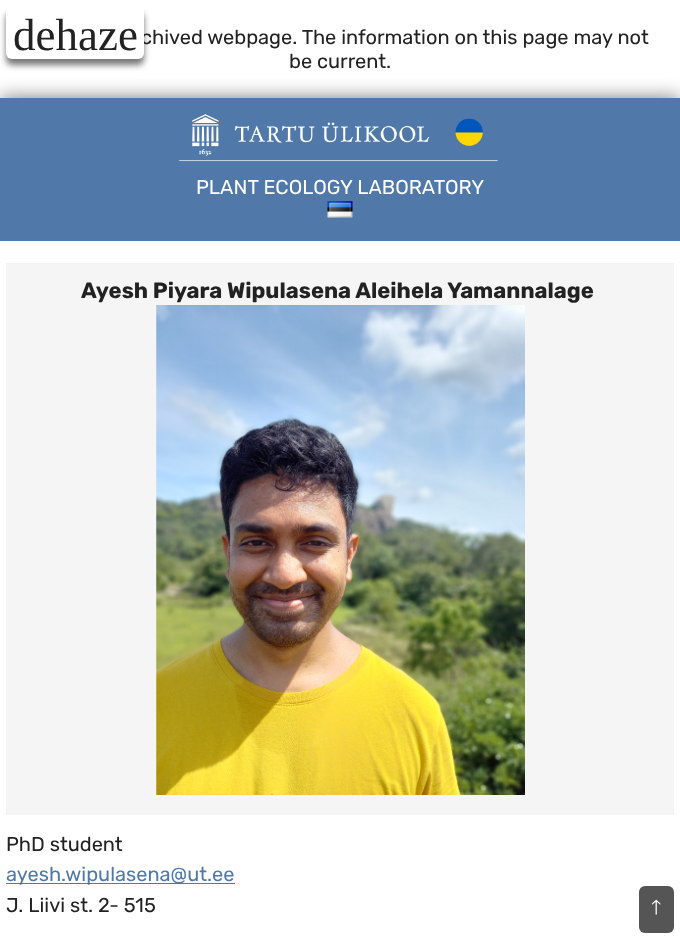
async function draw(canvas) {
  canvas.width = 680
  canvas.height = 938
  const ctx = canvas.getContext('2d')
  ctx.miterLimit = 4
  ctx.fontKerning = 'normal'
  async function loadImage(src) {
    const img = new Image()
    img.src = src
    await img.decode()
    return img
  }

  ctx.fillStyle = '#fff'
  ctx.fillRect(0, 0, 680, 938)
  ctx.fillStyle = '#777'
  ctx.filter = 'blur(9.5px)'
  ctx.beginPath()
  ctx.rect(0, 98, 680, 143)
  ctx.fill()
  ctx.filter = 'none'
  ctx.fillStyle = '#fff'
  ctx.fillRect(0, 241, 680, 20)
  ctx.fillStyle = '#777'
  ctx.filter = 'blur(3px)'
  ctx.beginPath()
  ctx.roundRect(6, 13, 138, 52, 6)
  ctx.fill()
  ctx.filter = 'none'
  ctx.font = '20px Rubik'
  ctx.fillStyle = '#222'
  ctx.fillText('chived webpage. The information on this page may not', 141, 44)
  ctx.fillStyle = '#fff'
  ctx.beginPath()
  ctx.roundRect(6, 6, 138, 53, 6)
  ctx.fill()
  ctx.font = '45px Liberation Serif'
  ctx.fillStyle = '#222'
  ctx.fillText('dehaze', 13, 50)
  ctx.fillStyle = '#f5f5f5'
  ctx.fillRect(6, 263, 668, 552)
  ctx.font = 'bold 22px Rubik'
  ctx.fillStyle = '#222'
  ctx.fillText('Ayesh Piyara Wipulasena Aleihela Yamannalage', 81, 298)
  ctx.drawImage(await loadImage('image0.png'), 156, 305, 369, 490)
  ctx.font = '20px Rubik'
  ctx.fillText('PhD student', 6, 851)
  ctx.fillStyle = '#5079aa'
  ctx.fillRect(6, 883, 229, 1)
  ctx.fillText('ayesh.wipulasena@ut.ee', 6, 881)
  ctx.fillStyle = '#222'
  ctx.fillText('J. Liivi st. 2- 515', 6, 912)
  ctx.fillText('be current.', 289, 68)
  ctx.fillStyle = '#5079aa'
  ctx.fillRect(0, 98, 680, 143)
  ctx.drawImage(await loadImage('image1.png'), 179, 114, 319, 48)
  ctx.fillStyle = '#fff'
  ctx.fillText('PLANT ECOLOGY LABORATORY', 196, 194)
  ctx.drawImage(await loadImage('image2.png'), 327, 201, 26, 17)
  ctx.fillStyle = '#555'
  ctx.beginPath()
  ctx.roundRect(639, 886, 35, 47, 6)
  ctx.fill()
  ctx.font = '20px "Noto Sans Symbols 2"'
  ctx.fillStyle = '#fff'
  ctx.fillText('🡑', 651, 914)
}

draw(document.querySelector('canvas'))
